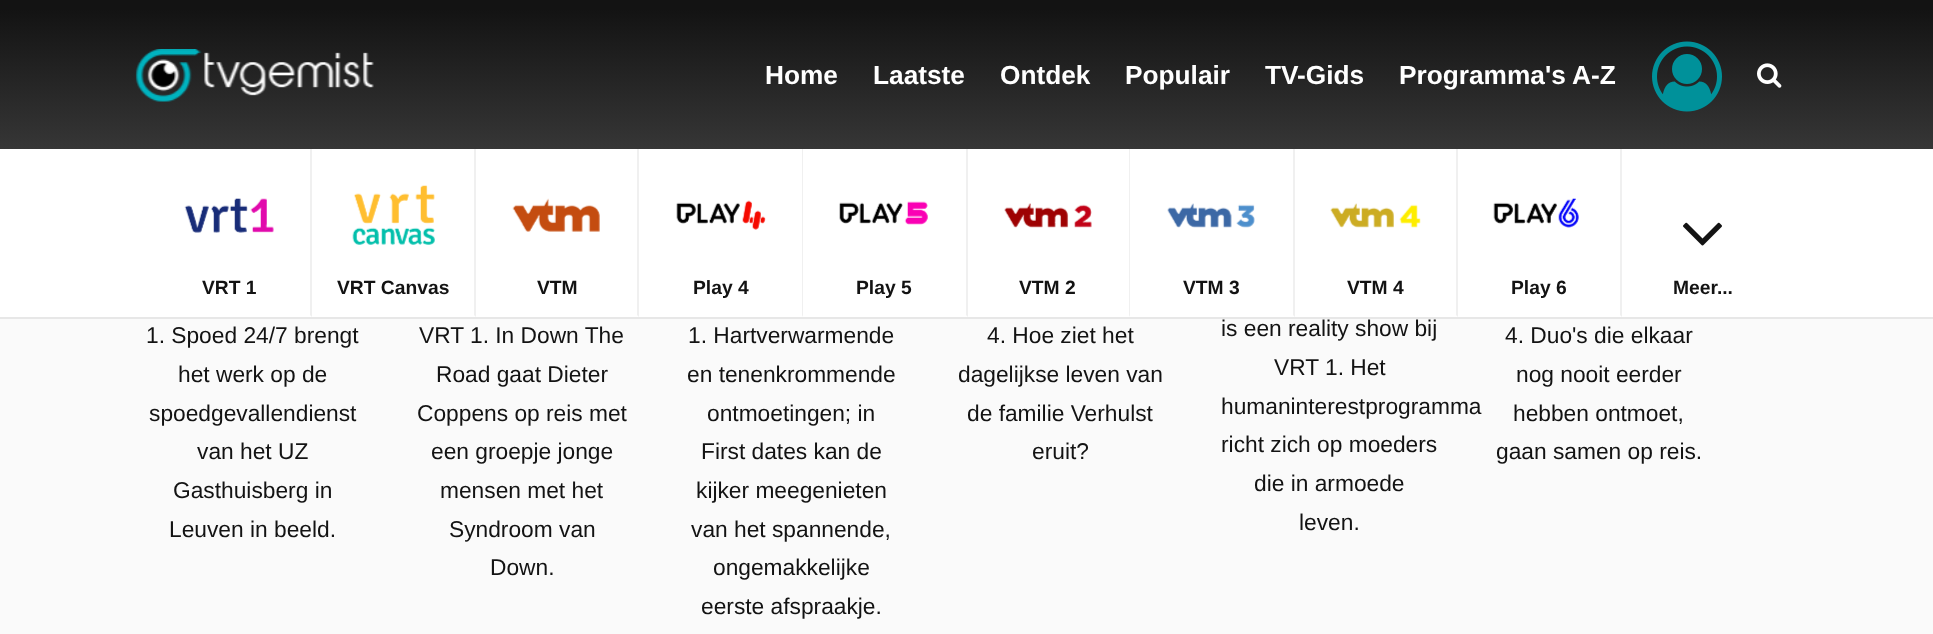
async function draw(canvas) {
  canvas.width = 1933
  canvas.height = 634
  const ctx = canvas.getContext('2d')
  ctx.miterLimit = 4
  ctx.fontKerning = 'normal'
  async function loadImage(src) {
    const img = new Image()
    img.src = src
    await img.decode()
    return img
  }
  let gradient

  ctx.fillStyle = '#fafafa'
  ctx.fillRect(0, 0, 1933, 634)
  gradient = ctx.createLinearGradient(967, 0, 967, 149)
  gradient.addColorStop(0.06, '#131313')
  gradient.addColorStop(1, '#363636')
  ctx.fillStyle = gradient
  ctx.fillRect(0, 0, 1933, 149)
  ctx.drawImage(await loadImage('image0.png'), 135, 49, 239, 53)
  ctx.font = 'bold 26.25px Liberation Sans'
  ctx.fillStyle = '#fff'
  ctx.fillText('Home', 765, 84)
  ctx.fillText('Laatste', 873, 84)
  ctx.fillText('Ontdek', 1000, 84)
  ctx.fillText('Populair', 1125, 84)
  ctx.fillText('TV-Gids', 1265, 84)
  ctx.fillText('Programma\'s A-Z', 1399, 84)
  ctx.drawImage(await loadImage('image1.png'), 1652, 41, 70, 71)
  ctx.drawImage(await loadImage('image2.png'), 1757, 63, 25, 25)
  ctx.fillRect(0, 149, 1933, 168)
  ctx.fillStyle = '#e7e7e7'
  ctx.fillRect(0, 317, 1933, 2)
  ctx.fillStyle = '#f0f0f0'
  ctx.beginPath()
  ctx.moveTo(312, 149)
  ctx.lineTo(312, 317)
  ctx.lineTo(310, 315)
  ctx.lineTo(310, 149)
  ctx.closePath()
  ctx.fill()
  ctx.drawImage(await loadImage('image3.png'), 184, 198, 90, 35)
  ctx.font = 'bold 19.25px Liberation Sans'
  ctx.fillStyle = '#131313'
  ctx.fillText('VRT 1', 202, 294)
  ctx.fillStyle = '#f0f0f0'
  ctx.beginPath()
  ctx.moveTo(476, 149)
  ctx.lineTo(476, 317)
  ctx.lineTo(474, 315)
  ctx.lineTo(474, 149)
  ctx.closePath()
  ctx.fill()
  ctx.drawImage(await loadImage('image4.png'), 352, 185, 83, 60)
  ctx.fillStyle = '#131313'
  ctx.fillText('VRT Canvas', 337, 294)
  ctx.fillStyle = '#f0f0f0'
  ctx.beginPath()
  ctx.moveTo(639, 149)
  ctx.lineTo(639, 317)
  ctx.lineTo(637, 315)
  ctx.lineTo(637, 149)
  ctx.closePath()
  ctx.fill()
  ctx.drawImage(await loadImage('image5.png'), 512, 198, 88, 34)
  ctx.fillStyle = '#131313'
  ctx.fillText('VTM', 537, 294)
  ctx.fillStyle = '#f0f0f0'
  ctx.beginPath()
  ctx.moveTo(803, 149)
  ctx.lineTo(803, 317)
  ctx.lineTo(802, 315)
  ctx.lineTo(802, 149)
  ctx.closePath()
  ctx.fill()
  ctx.drawImage(await loadImage('image6.png'), 676, 200, 90, 30)
  ctx.fillStyle = '#131313'
  ctx.fillText('Play 4', 693, 294)
  ctx.fillStyle = '#f0f0f0'
  ctx.beginPath()
  ctx.moveTo(968, 149)
  ctx.lineTo(968, 317)
  ctx.lineTo(966, 315)
  ctx.lineTo(966, 149)
  ctx.closePath()
  ctx.fill()
  ctx.drawImage(await loadImage('image7.png'), 839, 201, 89, 24)
  ctx.fillStyle = '#131313'
  ctx.fillText('Play 5', 856, 294)
  ctx.fillStyle = '#f0f0f0'
  ctx.beginPath()
  ctx.moveTo(1130, 149)
  ctx.lineTo(1130, 317)
  ctx.lineTo(1129, 315)
  ctx.lineTo(1129, 149)
  ctx.closePath()
  ctx.fill()
  ctx.drawImage(await loadImage('image8.png'), 1004, 203, 88, 25)
  ctx.fillStyle = '#131313'
  ctx.fillText('VTM 2', 1019, 294)
  ctx.fillStyle = '#f0f0f0'
  ctx.beginPath()
  ctx.moveTo(1295, 149)
  ctx.lineTo(1295, 317)
  ctx.lineTo(1293, 315)
  ctx.lineTo(1293, 149)
  ctx.closePath()
  ctx.fill()
  ctx.drawImage(await loadImage('image9.png'), 1167, 203, 88, 25)
  ctx.fillStyle = '#131313'
  ctx.fillText('VTM 3', 1183, 294)
  ctx.fillStyle = '#f0f0f0'
  ctx.beginPath()
  ctx.moveTo(1458, 149)
  ctx.lineTo(1458, 317)
  ctx.lineTo(1456, 315)
  ctx.lineTo(1456, 149)
  ctx.closePath()
  ctx.fill()
  ctx.drawImage(await loadImage('image10.png'), 1330, 203, 91, 25)
  ctx.fillStyle = '#131313'
  ctx.fillText('VTM 4', 1347, 294)
  ctx.fillStyle = '#f0f0f0'
  ctx.beginPath()
  ctx.moveTo(1622, 149)
  ctx.lineTo(1622, 317)
  ctx.lineTo(1620, 315)
  ctx.lineTo(1620, 149)
  ctx.closePath()
  ctx.fill()
  ctx.drawImage(await loadImage('image11.png'), 1493, 198, 86, 30)
  ctx.fillStyle = '#131313'
  ctx.fillText('Play 6', 1511, 294)
  ctx.drawImage(await loadImage('image12.png'), 1683, 222, 39, 24)
  ctx.fillText('Meer...', 1673, 294)
  ctx.font = '22.75px Liberation Sans'
  ctx.fillText('1. Spoed 24/7 brengt', 146, 343)
  ctx.fillText('het werk op de', 178, 382)
  ctx.fillText('spoedgevallendienst', 149, 421)
  ctx.fillText('van het UZ', 197, 459)
  ctx.fillText('Gasthuisberg in', 173, 498)
  ctx.fillText('Leuven in beeld.', 169, 537)
  ctx.fillText('VRT 1. In Down The', 419, 343)
  ctx.fillText('Road gaat Dieter', 436, 382)
  ctx.fillText('Coppens op reis met', 417, 421)
  ctx.fillText('een groepje jonge', 431, 459)
  ctx.fillText('mensen met het', 440, 498)
  ctx.fillText('Syndroom van', 449, 537)
  ctx.fillText('Down.', 490, 575)
  ctx.fillText('1. Hartverwarmende', 688, 343)
  ctx.fillText('en tenenkrommende', 687, 382)
  ctx.fillText('ontmoetingen; in', 707, 421)
  ctx.fillText('First dates kan de', 701, 459)
  ctx.fillText('kijker meegenieten', 696, 498)
  ctx.fillText('van het spannende,', 691, 537)
  ctx.fillText('ongemakkelijke', 713, 575)
  ctx.fillText('eerste afspraakje.', 701, 614)
  ctx.fillText('4. Hoe ziet het', 987, 343)
  ctx.fillText('dagelijkse leven van', 958, 382)
  ctx.fillText('de familie Verhulst', 967, 421)
  ctx.fillText('eruit?', 1032, 459)
  ctx.fillText('is een reality show bij', 1221, 336)
  ctx.fillText('VRT 1. Het', 1274, 375)
  ctx.fillText('humaninterestprogramma', 1221, 414)
  ctx.fillText('richt zich op moeders', 1221, 452)
  ctx.fillText('die in armoede', 1254, 491)
  ctx.fillText('leven.', 1299, 530)
  ctx.fillText('4. Duo\'s die elkaar', 1505, 343)
  ctx.fillText('nog nooit eerder', 1516, 382)
  ctx.fillText('hebben ontmoet,', 1513, 421)
  ctx.fillText('gaan samen op reis.', 1496, 459)
}

draw(document.querySelector('canvas'))
